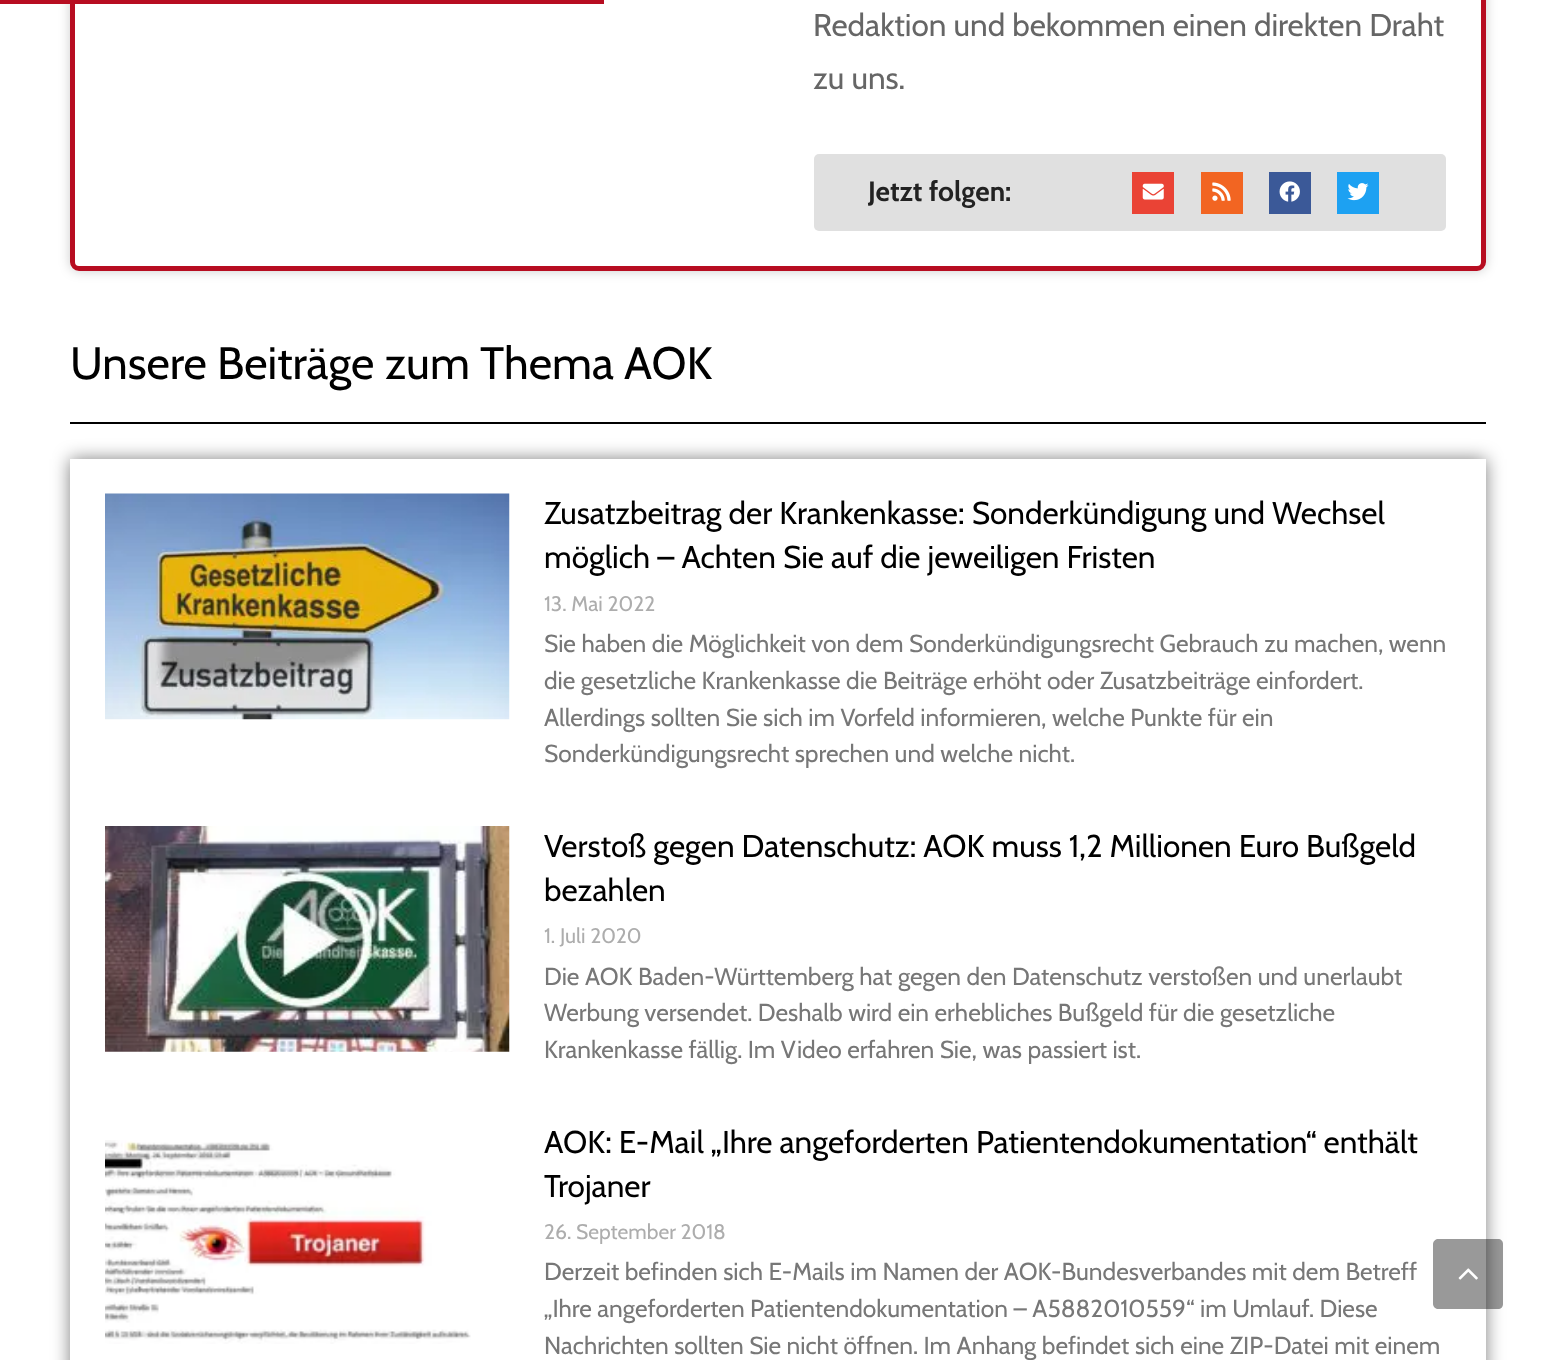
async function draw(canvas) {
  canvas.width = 1555
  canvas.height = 1360
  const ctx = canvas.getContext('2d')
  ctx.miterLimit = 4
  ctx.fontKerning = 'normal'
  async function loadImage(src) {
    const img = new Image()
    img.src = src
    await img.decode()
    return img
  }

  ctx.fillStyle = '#fff'
  ctx.fillRect(0, 0, 1555, 1360)
  ctx.save()
  ctx.beginPath()
  ctx.moveTo(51, 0)
  ctx.lineTo(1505, 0)
  ctx.lineTo(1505, 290)
  ctx.lineTo(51, 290)
  ctx.closePath()
  ctx.moveTo(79, -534)
  ctx.lineTo(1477, -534)
  ctx.bezierCurveTo(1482, -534, 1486, -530, 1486, -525)
  ctx.lineTo(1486, 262)
  ctx.bezierCurveTo(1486, 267, 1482, 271, 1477, 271)
  ctx.lineTo(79, 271)
  ctx.bezierCurveTo(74, 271, 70, 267, 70, 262)
  ctx.lineTo(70, -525)
  ctx.bezierCurveTo(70, -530, 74, -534, 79, -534)
  ctx.closePath()
  ctx.clip('evenodd')
  ctx.fillStyle = '#00000033'
  ctx.filter = 'blur(6px)'
  ctx.beginPath()
  ctx.roundRect(70, -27, 1416, 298, 9)
  ctx.fill()
  ctx.filter = 'none'
  ctx.restore()
  ctx.beginPath()
  ctx.roundRect(72.5, -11.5, 1411, 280, 6.5)
  ctx.strokeStyle = '#b70d21'
  ctx.lineWidth = 5
  ctx.stroke()
  ctx.fillStyle = '#b70d21'
  ctx.fillRect(0, 0, 604, 4)
  ctx.font = '31.5px Cabin'
  ctx.fillStyle = '#666'
  ctx.fillText('Redaktion und bekommen einen direkten Draht', 813, 36)
  ctx.fillText('zu uns.', 813, 89)
  ctx.fillStyle = '#e0e0e0'
  ctx.beginPath()
  ctx.roundRect(814, 154, 632, 77, 5)
  ctx.fill()
  ctx.font = 'bold 28px Cabin'
  ctx.fillStyle = '#222'
  ctx.fillText('Jetzt folgen:', 868, 201)
  ctx.fillStyle = '#ea4335'
  ctx.fillRect(1132, 172, 42, 42)
  ctx.drawImage(await loadImage('image0.png'), 1142, 183, 22, 17)
  ctx.fillStyle = '#f26522'
  ctx.fillRect(1201, 172, 42, 42)
  ctx.drawImage(await loadImage('image1.png'), 1212, 182, 19, 19)
  ctx.fillStyle = '#3b5998'
  ctx.fillRect(1269, 172, 42, 42)
  ctx.drawImage(await loadImage('image2.png'), 1279, 181, 21, 21)
  ctx.fillStyle = '#1da1f2'
  ctx.fillRect(1337, 172, 42, 42)
  ctx.drawImage(await loadImage('image3.png'), 1347, 183, 22, 18)
  ctx.font = '45.5px Cabin'
  ctx.fillStyle = '#000'
  ctx.fillText('Unsere Beiträge zum Thema AOK', 70, 379)
  ctx.fillRect(70, 422, 1416, 2)
  ctx.fillStyle = '#00000080'
  ctx.filter = 'blur(9px)'
  ctx.beginPath()
  ctx.rect(70, 459, 1416, 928)
  ctx.fill()
  ctx.filter = 'none'
  ctx.fillStyle = '#fff'
  ctx.fillRect(70, 459, 1416, 901)
  ctx.drawImage(await loadImage('image4.png'), 105, 493, 405, 227)
  ctx.font = '31.5px Cabin'
  ctx.fillStyle = '#000'
  ctx.fillText('Zusatzbeitrag der Krankenkasse: Sonderkündigung und Wechsel', 544, 524)
  ctx.fillText('möglich – Achten Sie auf die jeweiligen Fristen', 544, 568)
  ctx.font = '21px Cabin'
  ctx.fillStyle = '#adadad'
  ctx.fillText('13. Mai 2022', 544, 611)
  ctx.font = '24.5px Cabin'
  ctx.fillStyle = '#777'
  ctx.fillText('Sie haben die Möglichkeit von dem Sonderkündigungsrecht Gebrauch zu machen, wenn', 544, 652)
  ctx.fillText('die gesetzliche Krankenkasse die Beiträge erhöht oder Zusatzbeiträge einfordert.', 544, 689)
  ctx.fillText('Allerdings sollten Sie sich im Vorfeld informieren, welche Punkte für ein', 544, 726)
  ctx.fillText('Sonderkündigungsrecht sprechen und welche nicht.', 544, 762)
  ctx.drawImage(await loadImage('image5.png'), 105, 826, 405, 226)
  ctx.font = '31.5px Cabin'
  ctx.fillStyle = '#000'
  ctx.fillText('Verstoß gegen Datenschutz: AOK muss 1,2 Millionen Euro Bußgeld', 544, 857)
  ctx.fillText('bezahlen', 544, 901)
  ctx.font = '21px Cabin'
  ctx.fillStyle = '#adadad'
  ctx.fillText('1. Juli 2020', 544, 943)
  ctx.font = '24.5px Cabin'
  ctx.fillStyle = '#777'
  ctx.fillText('Die AOK Baden-Württemberg hat gegen den Datenschutz verstoßen und unerlaubt', 544, 985)
  ctx.fillText('Werbung versendet. Deshalb wird ein erhebliches Bußgeld für die gesetzliche', 544, 1021)
  ctx.fillText('Krankenkasse fällig. Im Video erfahren Sie, was passiert ist.', 544, 1058)
  ctx.drawImage(await loadImage('image6.png'), 105, 1140, 366, 204)
  ctx.font = '31.5px Cabin'
  ctx.fillStyle = '#000'
  ctx.fillText('AOK: E-Mail „Ihre angeforderten Patientendokumentation“ enthält', 544, 1153)
  ctx.fillText('Trojaner', 544, 1197)
  ctx.font = '21px Cabin'
  ctx.fillStyle = '#adadad'
  ctx.fillText('26. September 2018', 544, 1239)
  ctx.font = '24.5px Cabin'
  ctx.fillStyle = '#777'
  ctx.fillText('Derzeit befinden sich E-Mails im Namen der AOK-Bundesverbandes mit dem Betreff', 544, 1280)
  ctx.fillText('„Ihre angeforderten Patientendokumentation – A5882010559“ im Umlauf. Diese', 544, 1317)
  ctx.fillText('Nachrichten sollten Sie nicht öffnen. Im Anhang befindet sich eine ZIP-Datei mit einem', 544, 1354)
  ctx.fillStyle = '#00000066'
  ctx.beginPath()
  ctx.moveTo(1498, 1309)
  ctx.lineTo(1438, 1309)
  ctx.bezierCurveTo(1436, 1309, 1433, 1307, 1433, 1304)
  ctx.lineTo(1433, 1244)
  ctx.bezierCurveTo(1433, 1241, 1436, 1239, 1438, 1239)
  ctx.lineTo(1498, 1239)
  ctx.bezierCurveTo(1501, 1239, 1503, 1241, 1503, 1244)
  ctx.lineTo(1503, 1304)
  ctx.bezierCurveTo(1503, 1307, 1501, 1309, 1498, 1309)
  ctx.closePath()
  ctx.fill()
  ctx.drawImage(await loadImage('image7.png'), 1458, 1268, 20, 12)
}

draw(document.querySelector('canvas'))
